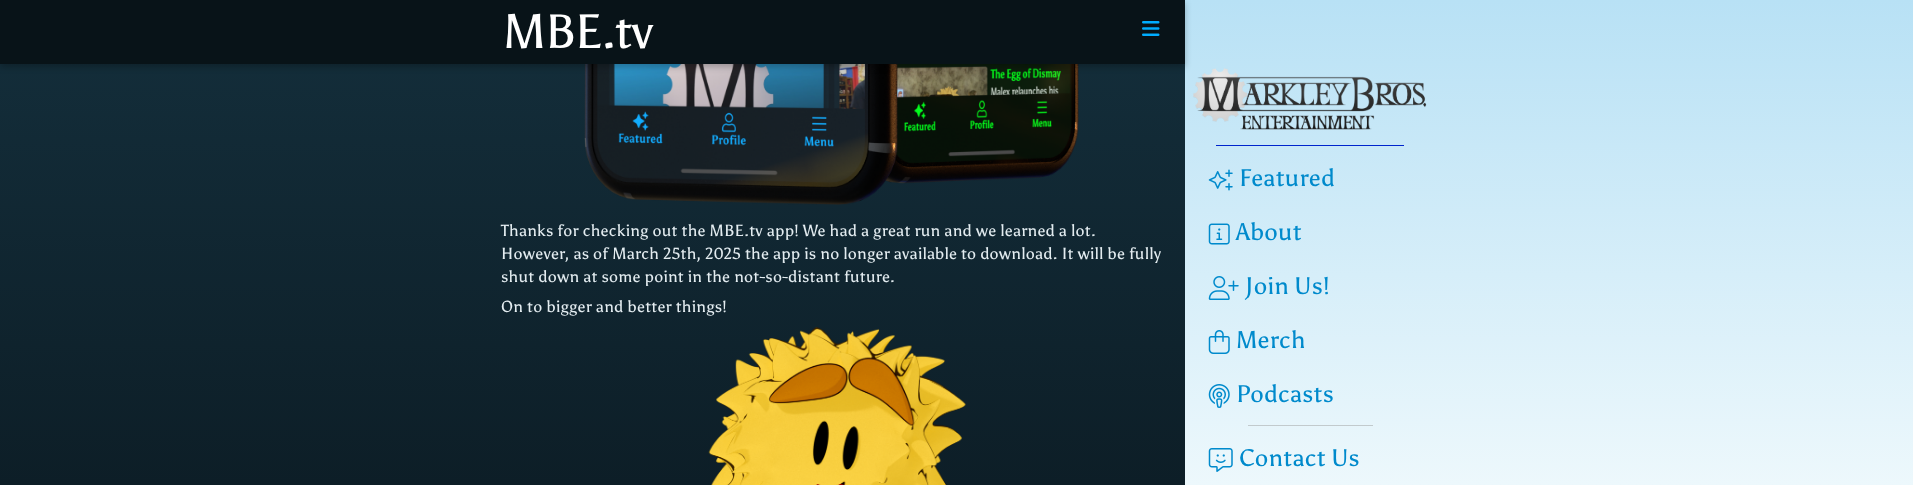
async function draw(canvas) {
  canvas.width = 1913
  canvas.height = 485
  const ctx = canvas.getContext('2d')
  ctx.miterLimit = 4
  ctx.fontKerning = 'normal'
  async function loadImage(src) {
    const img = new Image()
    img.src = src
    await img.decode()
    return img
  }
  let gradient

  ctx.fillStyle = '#fff'
  ctx.fillRect(0, 0, 1913, 485)
  gradient = ctx.createLinearGradient(957, 0, 957, 485)
  gradient.addColorStop(0, '#142f3c')
  gradient.addColorStop(1, '#0d1e27')
  ctx.fillStyle = gradient
  ctx.fillRect(0, 64, 1185, 421)
  ctx.drawImage(await loadImage('image1.png'), 584, 64, 495, 141)
  gradient = ctx.createLinearGradient(1549, 0, 1549, 485)
  gradient.addColorStop(0, '#b8e1f5')
  gradient.addColorStop(1, '#edf8fc')
  ctx.fillStyle = gradient
  ctx.fillRect(1185, 0, 728, 485)
  ctx.drawImage(await loadImage('image3.png'), 1193, 68, 234, 62)
  ctx.fillStyle = '#00000040'
  ctx.filter = 'blur(3px)'
  ctx.beginPath()
  ctx.rect(0, 3, 1185, 64)
  ctx.fill()
  ctx.filter = 'none'
  ctx.fillStyle = '#081318'
  ctx.fillRect(0, 0, 1185, 64)
  ctx.letterSpacing = '-1px'
  ctx.font = '48px Asul'
  ctx.fillStyle = '#fff'
  ctx.fillText('MBE.tv', 503, 48)
  ctx.drawImage(await loadImage('image0.png'), 1142, 21, 18, 15)
  ctx.letterSpacing = '0.25px'
  ctx.font = '16px Asul'
  ctx.fillStyle = '#e3ecf0'
  ctx.fillText('Thanks for checking out the MBE.tv app! We had a great run and we learned a lot.', 501, 236)
  ctx.fillText('However, as of March 25th, 2025 the app is no longer available to download. It will be fully', 501, 259)
  ctx.fillText('shut down at some point in the not-so-distant future.', 501, 282)
  ctx.fillText('On to bigger and better things!', 501, 312)
  ctx.drawImage(await loadImage('image2.png'), 708, 327, 258, 158)
  ctx.fillStyle = '#0024cc'
  ctx.fillRect(1216, 145, 188, 1)
  ctx.drawImage(await loadImage('image4.png'), 1208, 169, 25, 22)
  ctx.font = '24px Asul'
  ctx.fillStyle = '#008acc'
  ctx.fillText('Featured', 1239, 186)
  ctx.drawImage(await loadImage('image5.png'), 1208, 223, 22, 22)
  ctx.fillText('About', 1236, 240)
  ctx.drawImage(await loadImage('image6.png'), 1208, 276, 31, 24)
  ctx.fillText('Join Us!', 1245, 294)
  ctx.drawImage(await loadImage('image7.png'), 1208, 330, 22, 24)
  ctx.fillText('Merch', 1236, 348)
  ctx.drawImage(await loadImage('image8.png'), 1208, 384, 22, 24)
  ctx.fillText('Podcasts', 1236, 402)
  ctx.fillStyle = '#c2cacd'
  ctx.fillRect(1248, 425, 125, 1)
  ctx.drawImage(await loadImage('image9.png'), 1208, 448, 25, 24)
  ctx.fillStyle = '#008acc'
  ctx.fillText('Contact Us', 1239, 466)
}

draw(document.querySelector('canvas'))
